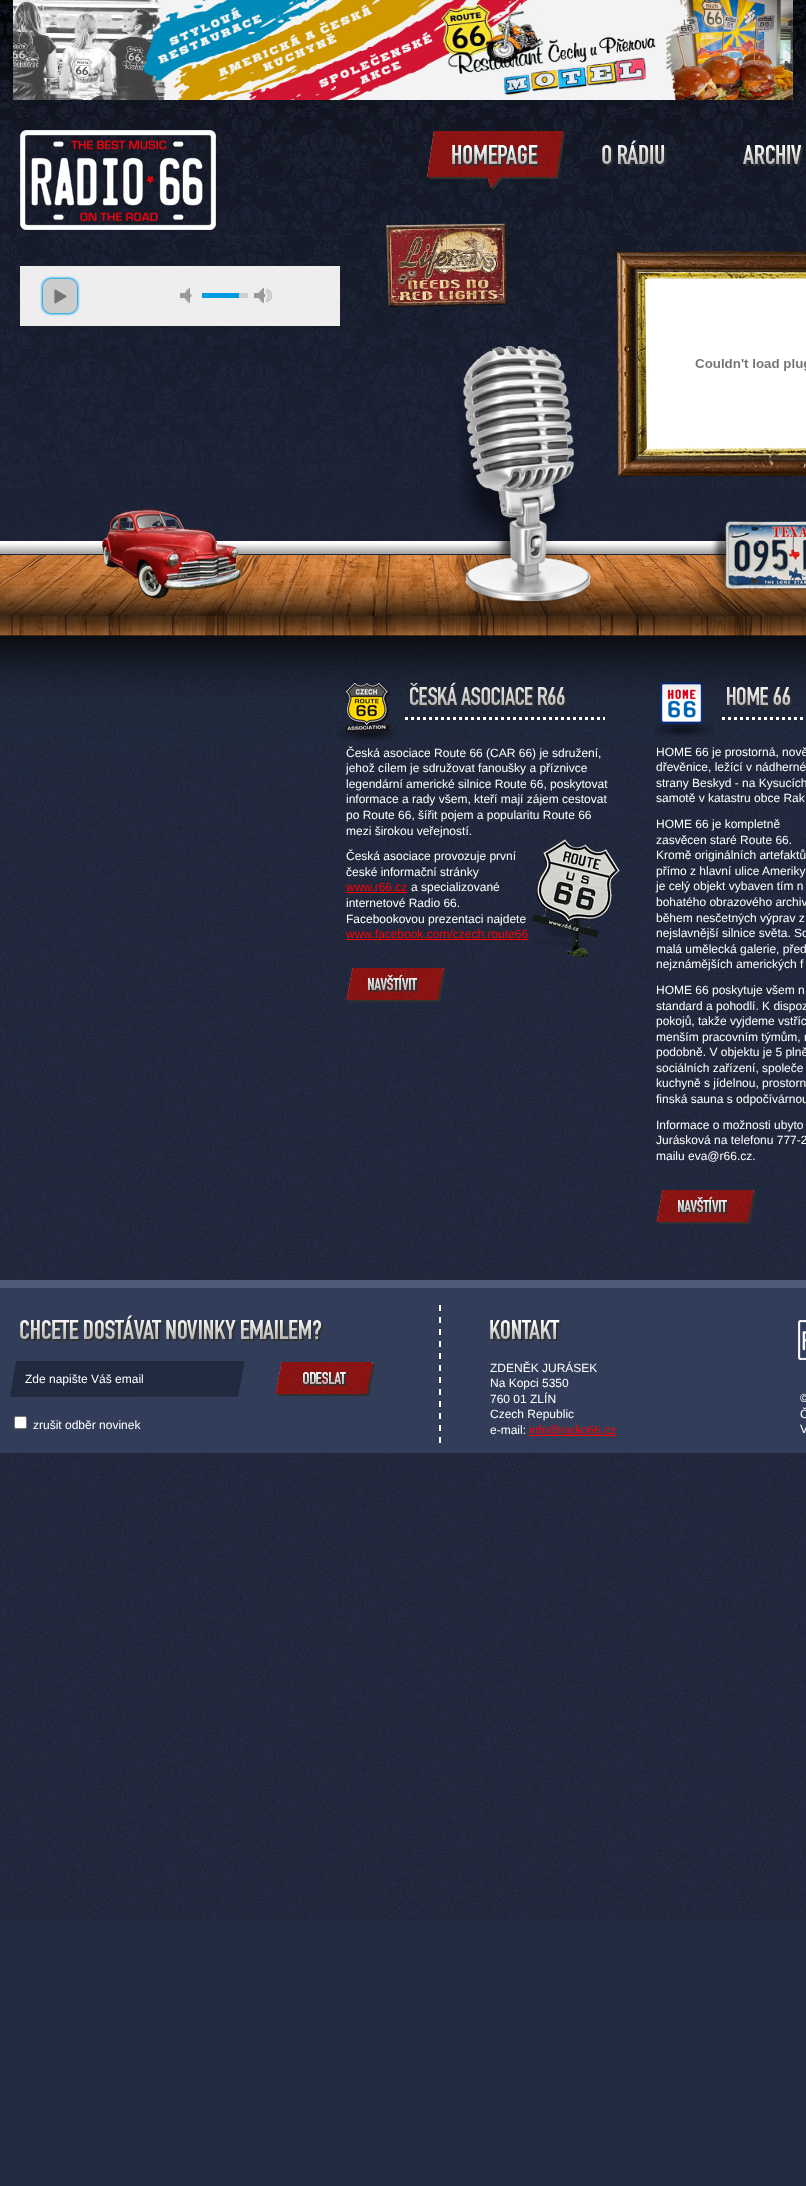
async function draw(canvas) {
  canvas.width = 806
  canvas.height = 2186
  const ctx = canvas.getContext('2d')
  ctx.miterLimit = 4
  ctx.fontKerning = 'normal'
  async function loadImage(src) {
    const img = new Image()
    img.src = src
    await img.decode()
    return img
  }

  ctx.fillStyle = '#222a3f'
  ctx.fillRect(0, 0, 806, 2186)
  ctx.drawImage(await loadImage('image0.png'), 0, 0, 806, 1920)
  ctx.drawImage(await loadImage('image1.png'), 13, 0, 780, 100)
  ctx.drawImage(await loadImage('image2.png'), 20, 130, 196, 100)
  ctx.drawImage(await loadImage('image3.png'), 427, 131, 138, 59)
  ctx.drawImage(await loadImage('image4.png'), 602, 140, 64, 26)
  ctx.drawImage(await loadImage('image5.png'), 743, 145, 60, 21)
  ctx.fillStyle = '#eee'
  ctx.fillRect(20, 266, 320, 60)
  ctx.drawImage(await loadImage('image6.png'), 40, 276, 40, 40)
  ctx.drawImage(await loadImage('image7.png'), 180, 288, 18, 15)
  ctx.fillStyle = '#ccc'
  ctx.fillRect(239, 293, 9, 5)
  ctx.drawImage(await loadImage('image8.png'), 202, 293, 37, 5)
  ctx.drawImage(await loadImage('image9.png'), 254, 288, 18, 15)
  ctx.drawImage(await loadImage('image10.png'), 617, 251, 189, 226)
  ctx.drawImage(await loadImage('image11.png'), 695, 359, 111, 12)
  ctx.drawImage(await loadImage('image12.png'), 386, 223, 121, 84)
  ctx.drawImage(await loadImage('image16.png'), 0, 541, 726, 13)
  ctx.drawImage(await loadImage('image18.png'), 337, 682, 61, 59)
  ctx.drawImage(await loadImage('image19.png'), 410, 682, 157, 25)
  ctx.drawImage(await loadImage('image23.png'), 653, 682, 61, 55)
  ctx.drawImage(await loadImage('image24.png'), 727, 687, 65, 20)
  ctx.drawImage(await loadImage('image17.png'), 0, 555, 806, 142)
  ctx.drawImage(await loadImage('image13.png'), 102, 508, 139, 91)
  ctx.drawImage(await loadImage('image14.png'), 459, 346, 132, 269)
  ctx.drawImage(await loadImage('image15.png'), 711, 521, 95, 72)
  ctx.drawImage(await loadImage('image20.png'), 405, 717, 200, 3)
  ctx.font = '12px Liberation Sans'
  ctx.fillStyle = '#fff'
  ctx.fillText('Česká asociace Route 66 (CAR 66) je sdružení,', 346, 757)
  ctx.fillText('jehož cílem je sdružovat fanoušky a příznivce', 346, 772)
  ctx.fillText('legendární americké silnice Route 66, poskytovat', 346, 788)
  ctx.fillText('informace a rady všem, kteří mají zájem cestovat', 346, 803)
  ctx.fillText('po Route 66, šířit pojem a popularitu Route 66', 346, 819)
  ctx.fillText('mezi širokou veřejností.', 346, 835)
  ctx.fillText('Česká asociace provozuje první', 346, 860)
  ctx.fillText('české informační stránky', 346, 876)
  ctx.fillStyle = '#f00'
  ctx.fillText('www.r66.cz', 346, 891)
  ctx.fillRect(346, 892, 61, 1)
  ctx.fillStyle = '#fff'
  ctx.fillText('a specializované', 411, 891)
  ctx.fillText('internetové Radio 66.', 346, 907)
  ctx.fillText('Facebookovou prezentaci najdete', 346, 923)
  ctx.fillStyle = '#f00'
  ctx.fillText('www.facebook.com/czech.route66', 346, 938)
  ctx.fillRect(346, 939, 182, 1)
  ctx.drawImage(await loadImage('image21.png'), 532, 839, 88, 119)
  ctx.drawImage(await loadImage('image22.png'), 346, 968, 100, 34)
  ctx.drawImage(await loadImage('image25.png'), 722, 717, 81, 3)
  ctx.fillStyle = '#fff'
  ctx.fillText('HOME 66 je prostorná, nově', 656, 756)
  ctx.fillText('dřevěnice, ležící v nádherné', 656, 771)
  ctx.fillText('strany Beskyd - na Kysucích', 656, 787)
  ctx.fillText('samotě v katastru obce Rak', 656, 802)
  ctx.fillText('HOME 66 je kompletně', 656, 828)
  ctx.fillText('zasvěcen staré Route 66.', 656, 844)
  ctx.fillText('Kromě originálních artefaktů', 656, 859)
  ctx.fillText('přímo z hlavní ulice Ameriky', 656, 875)
  ctx.fillText('je celý objekt vybaven tím n', 656, 890)
  ctx.fillText('bohatého obrazového archiv', 656, 906)
  ctx.fillText('během nesčetných výprav z', 656, 922)
  ctx.fillText('nejslavnější silnice světa. So', 656, 937)
  ctx.fillText('malá umělecká galerie, před', 656, 953)
  ctx.fillText('nejznámějších amerických f', 656, 968)
  ctx.fillText('HOME 66 poskytuje všem n', 656, 994)
  ctx.fillText('standard a pohodlí. K dispoz', 656, 1010)
  ctx.fillText('pokojů, takže vyjdeme vstříc', 656, 1025)
  ctx.fillText('menším pracovním týmům, r', 656, 1041)
  ctx.fillText('podobně. V objektu je 5 plně', 656, 1056)
  ctx.fillText('sociálních zařízení, společe', 656, 1072)
  ctx.fillText('kuchyně s jídelnou, prostorn', 656, 1087)
  ctx.fillText('finská sauna s odpočívárnou', 656, 1103)
  ctx.fillText('Informace o možnosti ubyto', 656, 1129)
  ctx.fillText('Jurásková na telefonu 777-2', 656, 1144)
  ctx.fillText('mailu eva@r66.cz.', 656, 1160)
  ctx.drawImage(await loadImage('image26.png'), 656, 1190, 100, 34)
  ctx.fillStyle = '#313d59'
  ctx.fillRect(0, 1288, 806, 165)
  ctx.fillStyle = '#4f5b7a'
  ctx.fillRect(0, 1280, 806, 8)
  ctx.drawImage(await loadImage('image27.png'), 20, 1315, 303, 26)
  ctx.drawImage(await loadImage('image28.png'), 10, 1361, 235, 36)
  ctx.fillStyle = '#fff'
  ctx.fillText('Zde napište Váš email', 25, 1383)
  ctx.drawImage(await loadImage('image29.png'), 275, 1362, 100, 34)
  ctx.beginPath()
  ctx.roundRect(14.5, 1416.5, 12, 12, 1.5)
  ctx.fill()
  ctx.strokeStyle = '#767676'
  ctx.stroke()
  ctx.fillText('zrušit odběr novinek', 33, 1429)
  ctx.drawImage(await loadImage('image30.png'), 439, 1305, 2, 138)
  ctx.drawImage(await loadImage('image31.png'), 490, 1320, 72, 21)
  ctx.fillText('ZDENĚK JURÁSEK', 490, 1372)
  ctx.fillText('Na Kopci 5350', 490, 1387)
  ctx.fillText('760 01 ZLÍN', 490, 1403)
  ctx.fillText('Czech Republic', 490, 1418)
  ctx.fillText('e-mail:', 490, 1434)
  ctx.fillStyle = '#f00'
  ctx.fillRect(529, 1435, 87, 1)
  ctx.fillText('info@radio66.cz', 529, 1434)
  ctx.drawImage(await loadImage('image32.png'), 798, 1320, 8, 40)
  ctx.fillStyle = '#fff'
  ctx.fillText('©', 800, 1402)
  ctx.fillText('Č', 800, 1418)
  ctx.fillText('V', 800, 1433)
}

draw(document.querySelector('canvas'))
